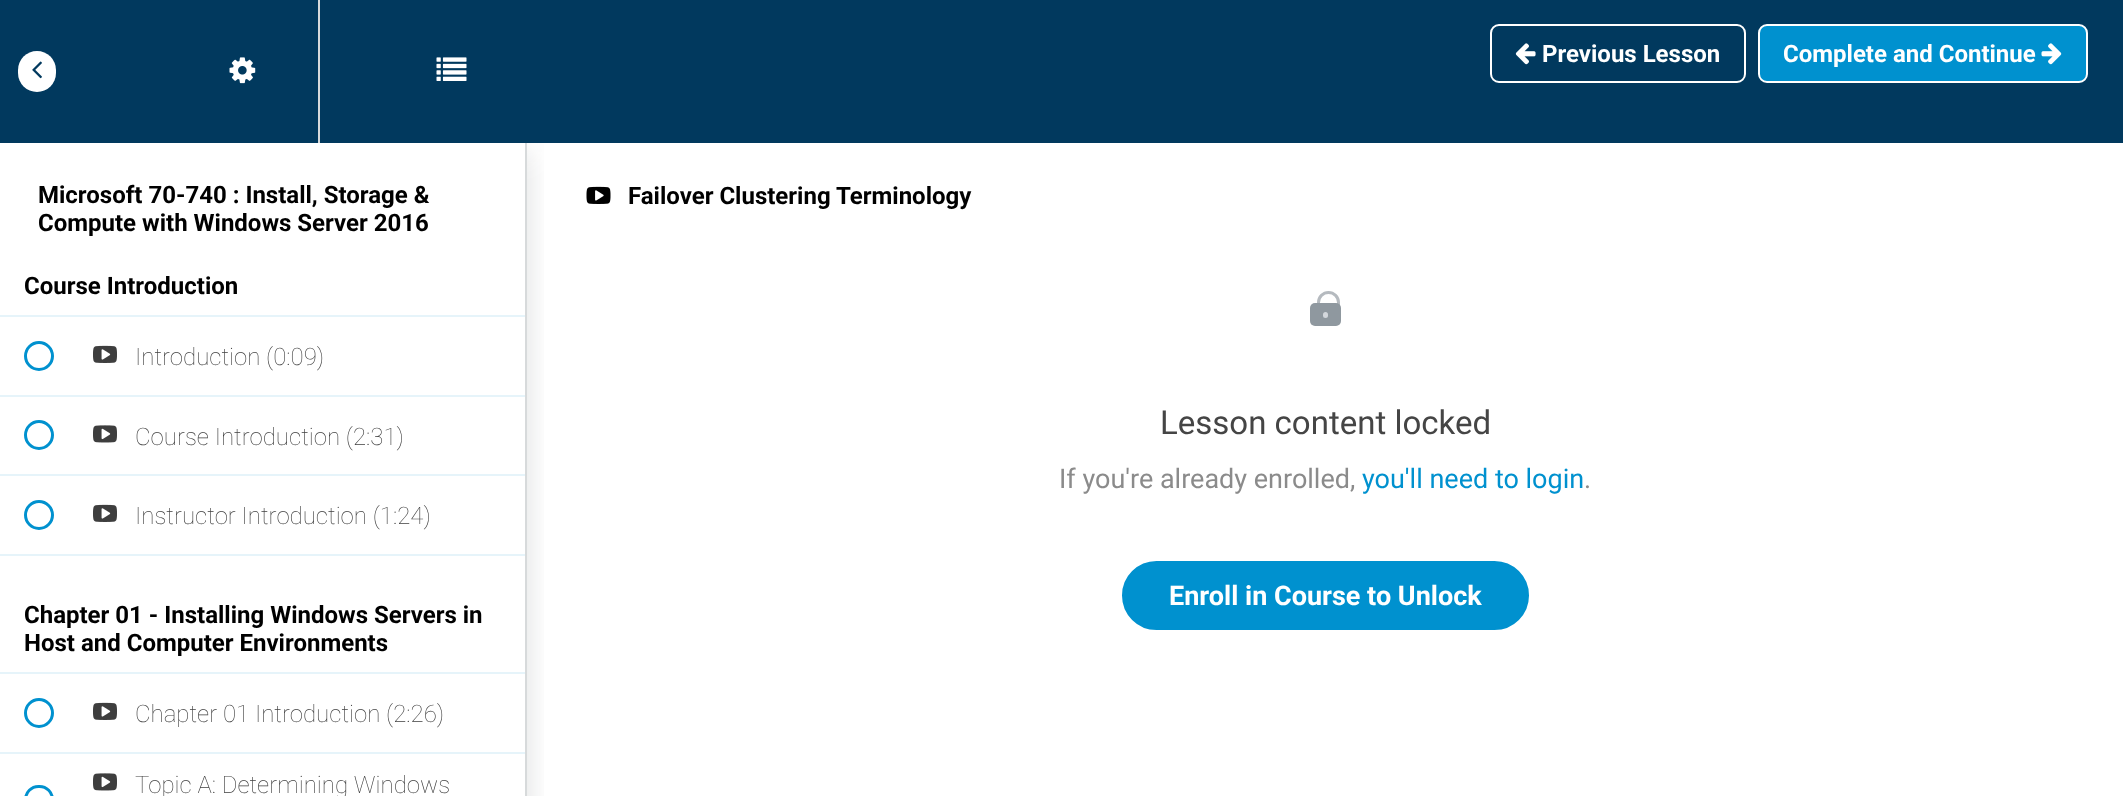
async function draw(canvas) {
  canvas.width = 2123
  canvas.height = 796
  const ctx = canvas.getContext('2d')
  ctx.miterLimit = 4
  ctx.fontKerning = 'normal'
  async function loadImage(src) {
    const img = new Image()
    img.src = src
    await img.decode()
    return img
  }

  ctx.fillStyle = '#fff'
  ctx.fillRect(0, 0, 2123, 796)
  ctx.save()
  ctx.beginPath()
  ctx.rect(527, 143, 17, 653)
  ctx.clip()
  ctx.fillStyle = '#20272d26'
  ctx.filter = 'blur(15px)'
  ctx.beginPath()
  ctx.rect(0, 152, 527, 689)
  ctx.fill()
  ctx.filter = 'none'
  ctx.restore()
  ctx.fillStyle = '#01395e'
  ctx.fillRect(0, 0, 2123, 143)
  ctx.fillStyle = '#fff'
  ctx.beginPath()
  ctx.roundRect(18, 51, 38, 41, 19)
  ctx.fill()
  ctx.drawImage(await loadImage('image0.png'), 32, 61, 10, 18)
  ctx.fillStyle = '#d7dadb'
  ctx.fillRect(318, 0, 2, 143)
  ctx.drawImage(await loadImage('image1.png'), 229, 57, 27, 27)
  ctx.drawImage(await loadImage('image2.png'), 436, 57, 31, 24)
  ctx.beginPath()
  ctx.roundRect(1491, 25, 254, 57, 8)
  ctx.strokeStyle = '#fff'
  ctx.lineWidth = 2
  ctx.stroke()
  ctx.drawImage(await loadImage('image3.png'), 1515, 43, 21, 22)
  ctx.font = 'bold 24px Roboto'
  ctx.fillStyle = '#fff'
  ctx.fillText('Previous Lesson', 1542, 62)
  ctx.fillStyle = '#0091cf'
  ctx.beginPath()
  ctx.roundRect(1759, 25, 328, 57, 8)
  ctx.fill()
  ctx.stroke()
  ctx.fillStyle = '#fff'
  ctx.fillText('Complete and Continue', 1783, 62)
  ctx.drawImage(await loadImage('image4.png'), 2041, 43, 21, 22)
  ctx.fillStyle = '#d7dadb'
  ctx.fillRect(525, 143, 2, 653)
  ctx.fillStyle = '#000'
  ctx.fillText('Microsoft 70-740 : Install, Storage &', 38, 203)
  ctx.fillText('Compute with Windows Server 2016', 38, 231)
  ctx.fillStyle = '#e6f4fa'
  ctx.fillRect(0, 315, 525, 2)
  ctx.fillStyle = '#000'
  ctx.fillText('Course Introduction', 24, 294)
  ctx.fillStyle = '#e6f4fa'
  ctx.fillRect(0, 395, 525, 2)
  ctx.beginPath()
  ctx.arc(39, 356, 13.5, 0, 2 * Math.PI)
  ctx.strokeStyle = '#0091cf'
  ctx.lineWidth = 3
  ctx.stroke()
  ctx.drawImage(await loadImage('image5.png'), 93, 345, 24, 18)
  ctx.font = '100 24px Roboto'
  ctx.fillStyle = '#3e3e3e'
  ctx.fillText('Introduction (0:09)', 135, 365)
  ctx.fillStyle = '#e6f4fa'
  ctx.fillRect(0, 474, 525, 2)
  ctx.beginPath()
  ctx.arc(39, 435, 13.5, 0, 2 * Math.PI)
  ctx.stroke()
  ctx.drawImage(await loadImage('image6.png'), 93, 425, 24, 18)
  ctx.fillStyle = '#3e3e3e'
  ctx.fillText('Course Introduction (2:31)', 135, 445)
  ctx.fillStyle = '#e6f4fa'
  ctx.fillRect(0, 554, 525, 2)
  ctx.beginPath()
  ctx.arc(39, 515, 13.5, 0, 2 * Math.PI)
  ctx.stroke()
  ctx.drawImage(await loadImage('image5.png'), 93, 504, 24, 18)
  ctx.fillStyle = '#3e3e3e'
  ctx.fillText('Instructor Introduction (1:24)', 135, 524)
  ctx.fillStyle = '#e6f4fa'
  ctx.fillRect(0, 672, 525, 2)
  ctx.font = 'bold 24px Roboto'
  ctx.fillStyle = '#000'
  ctx.fillText('Chapter 01 - Installing Windows Servers in', 24, 623)
  ctx.fillText('Host and Computer Environments', 24, 651)
  ctx.fillStyle = '#e6f4fa'
  ctx.fillRect(0, 752, 525, 2)
  ctx.beginPath()
  ctx.arc(39, 713, 13.5, 0, 2 * Math.PI)
  ctx.stroke()
  ctx.drawImage(await loadImage('image5.png'), 93, 702, 24, 18)
  ctx.font = '100 24px Roboto'
  ctx.fillStyle = '#3e3e3e'
  ctx.fillText('Chapter 01 Introduction (2:26)', 135, 722)
  ctx.beginPath()
  ctx.roundRect(25.5, 786.5, 27, 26, 13.5)
  ctx.stroke()
  ctx.drawImage(await loadImage('image6.png'), 93, 773, 24, 18)
  ctx.fillText('Topic A: Determining Windows', 135, 793)
  ctx.drawImage(await loadImage('image7.png'), 586, 186, 25, 18)
  ctx.font = 'bold 24px Roboto'
  ctx.fillStyle = '#000'
  ctx.fillText('Failover Clustering Terminology', 628, 204)
  ctx.beginPath()
  ctx.roundRect(1318.5, 292.5, 20, 30, 10)
  ctx.strokeStyle = '#b5babf'
  ctx.stroke()
  ctx.fillStyle = '#8f989f'
  ctx.beginPath()
  ctx.roundRect(1310, 303, 31, 23, 5)
  ctx.fill()
  ctx.fillStyle = '#d3d7dc'
  ctx.beginPath()
  ctx.roundRect(1323, 312, 5, 6, 2.5)
  ctx.fill()
  ctx.font = '33px Roboto'
  ctx.fillStyle = '#454545'
  ctx.fillText('Lesson content locked', 1160, 434)
  ctx.font = '27px Roboto'
  ctx.fillStyle = '#8b8b8b'
  ctx.fillText('If you\'re already enrolled,', 1059, 488)
  ctx.fillStyle = '#0091cf'
  ctx.fillText('you\'ll need to login', 1362, 488)
  ctx.fillStyle = '#8b8b8b'
  ctx.fillText('.', 1584, 488)
  ctx.fillStyle = '#0091cf'
  ctx.beginPath()
  ctx.roundRect(1123, 562, 405, 67, 33.5)
  ctx.fill()
  ctx.strokeStyle = '#0091cf'
  ctx.lineWidth = 2
  ctx.stroke()
  ctx.font = 'bold 27px Roboto'
  ctx.fillStyle = '#fff'
  ctx.fillText('Enroll in Course to Unlock', 1169, 605)
}

draw(document.querySelector('canvas'))
